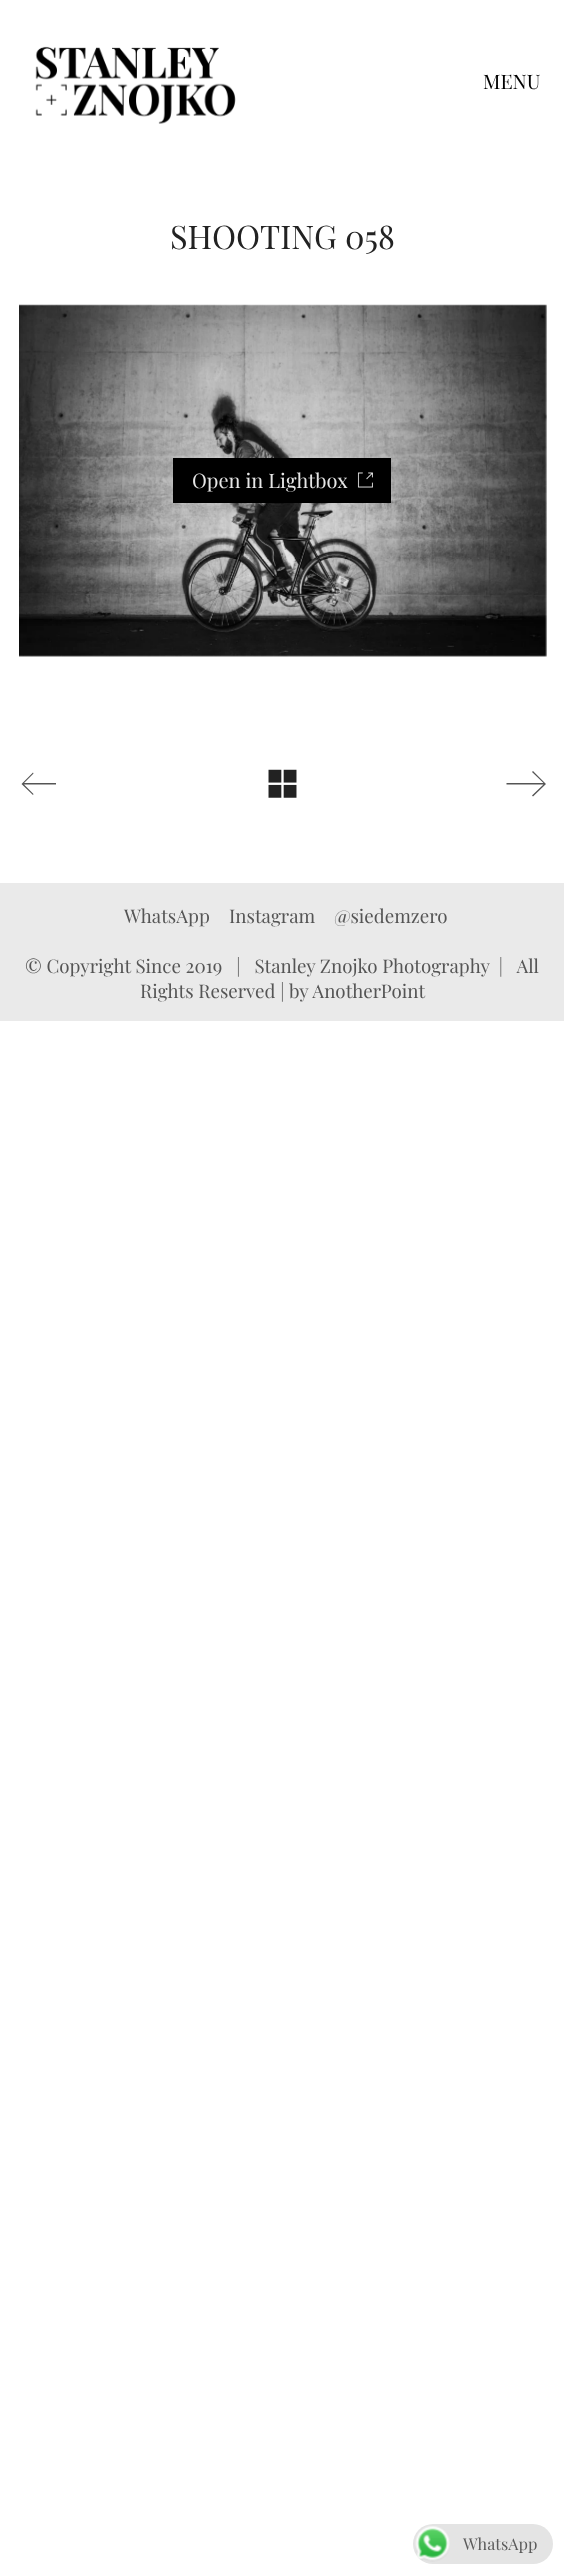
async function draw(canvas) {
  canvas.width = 564
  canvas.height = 2576
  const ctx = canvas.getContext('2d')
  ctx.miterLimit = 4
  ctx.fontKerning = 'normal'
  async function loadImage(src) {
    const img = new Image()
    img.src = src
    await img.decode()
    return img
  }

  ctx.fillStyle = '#fff'
  ctx.fillRect(0, 0, 564, 2576)
  ctx.drawImage(await loadImage('image0.png'), 35, 46, 201, 78)
  ctx.font = '20px Playfair Display'
  ctx.fillStyle = '#000'
  ctx.fillText('MENU', 483, 89)
  ctx.font = '32.5px Playfair Display'
  ctx.fillStyle = '#222'
  ctx.fillText('SHOOTING 058', 170, 249)
  ctx.drawImage(await loadImage('image1.png'), 19, 304, 528, 353)
  ctx.fillStyle = '#000'
  ctx.fillRect(173, 458, 218, 45)
  ctx.font = '20px Playfair Display'
  ctx.fillStyle = '#e6e6e6'
  ctx.fillText('Open in Lightbox', 192, 488)
  ctx.drawImage(await loadImage('image2.png'), 357, 472, 16, 16)
  ctx.fillStyle = '#555'
  ctx.beginPath()
  ctx.moveTo(56, 783)
  ctx.lineTo(24, 783)
  ctx.lineTo(33.5, 773.5)
  ctx.lineTo(33, 772.5)
  ctx.lineTo(21.5, 784)
  ctx.lineTo(33, 795)
  ctx.lineTo(33.5, 794)
  ctx.lineTo(24, 784.5)
  ctx.lineTo(56, 784.5)
  ctx.closePath()
  ctx.fill()
  ctx.drawImage(await loadImage('image3.png'), 268, 769, 29, 29)
  ctx.beginPath()
  ctx.moveTo(533, 771)
  ctx.lineTo(532, 772)
  ctx.lineTo(543.5, 783)
  ctx.lineTo(506.5, 783)
  ctx.lineTo(506.5, 784.5)
  ctx.lineTo(543.5, 784.5)
  ctx.lineTo(532, 795.5)
  ctx.lineTo(533, 796.5)
  ctx.lineTo(546, 784)
  ctx.closePath()
  ctx.fill()
  ctx.fillStyle = '#eaeaea'
  ctx.fillRect(0, 883, 564, 138)
  ctx.font = '18.75px Playfair Display'
  ctx.fillStyle = '#555'
  ctx.fillText('WhatsApp', 124, 923)
  ctx.fillText('Instagram', 229, 923)
  ctx.fillText('@siedemzero', 334, 923)
  ctx.fillText('© Copyright Since 2019   |   Stanley Znojko Photography  |   All', 25, 973)
  ctx.fillText('Rights Reserved | by AnotherPoint', 140, 998)
  ctx.fillStyle = '#e4e4e4'
  ctx.beginPath()
  ctx.roundRect(413, 2524, 140, 40, 20)
  ctx.fill()
  ctx.drawImage(await loadImage('image4.png'), 415, 2526, 35, 36)
  ctx.font = '16.25px Playfair Display'
  ctx.fillStyle = '#5b5b5b'
  ctx.fillText('WhatsApp', 463, 2550)
}

draw(document.querySelector('canvas'))
